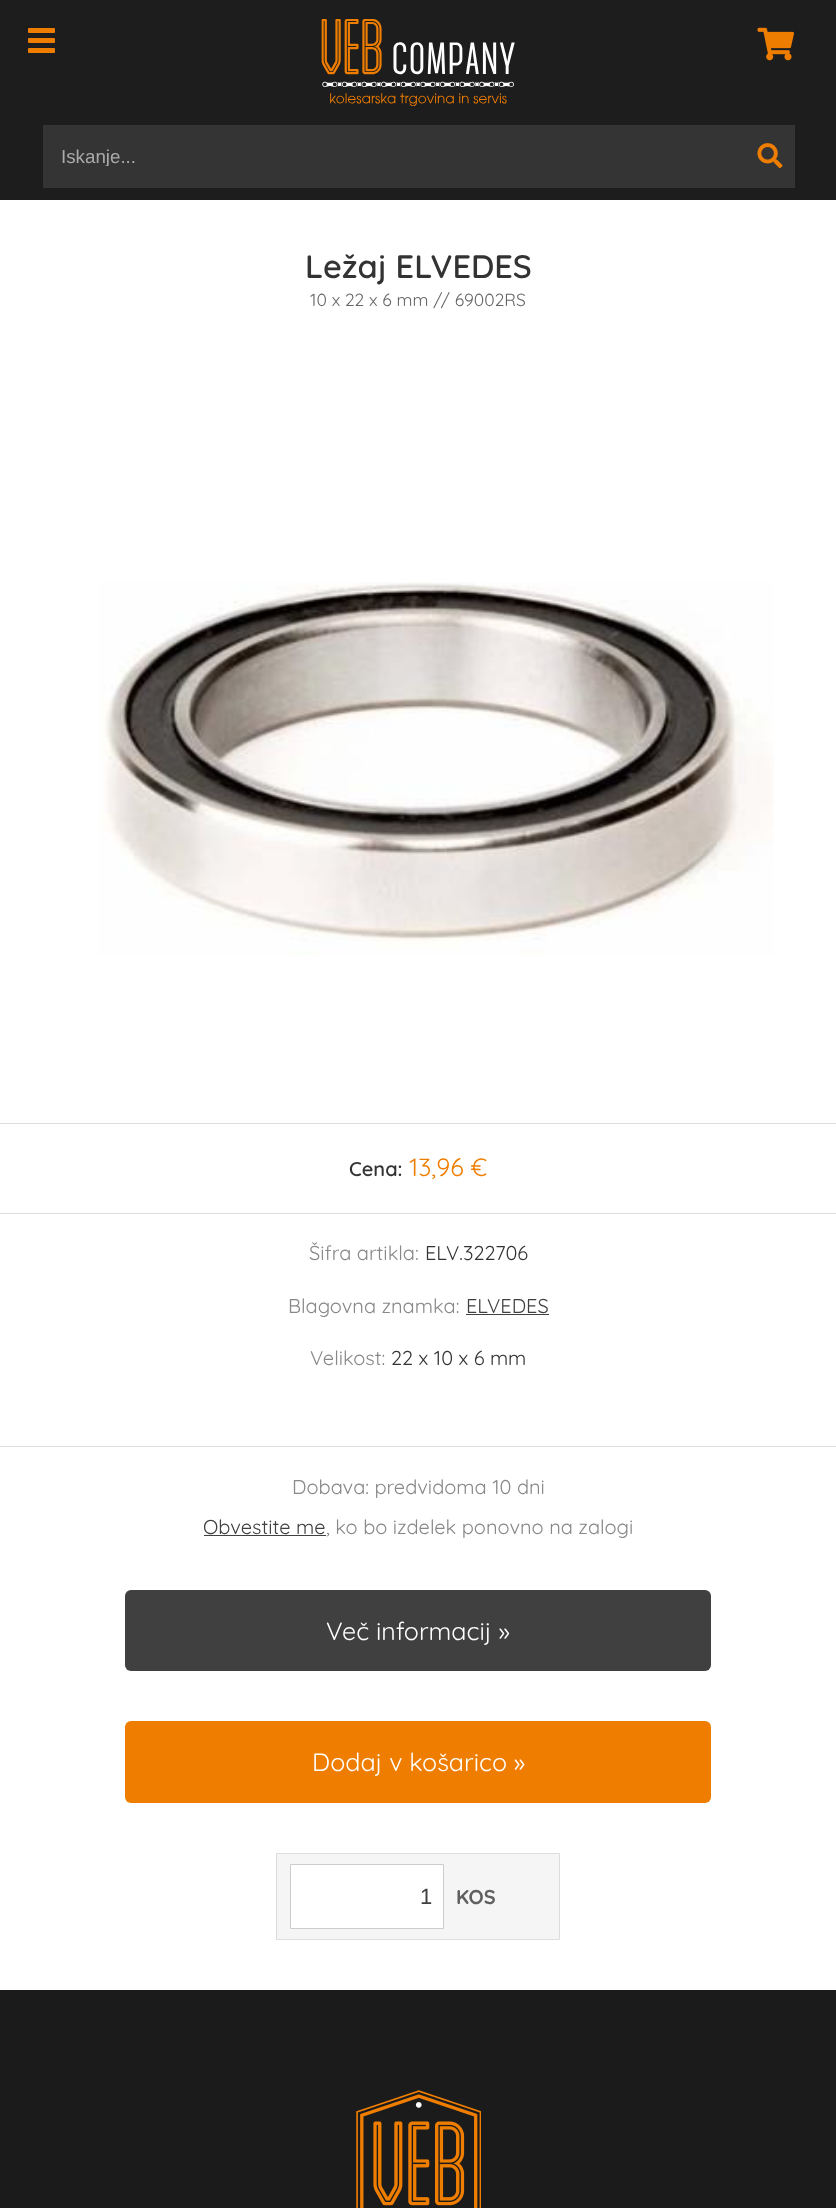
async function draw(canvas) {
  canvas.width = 836
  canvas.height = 2208
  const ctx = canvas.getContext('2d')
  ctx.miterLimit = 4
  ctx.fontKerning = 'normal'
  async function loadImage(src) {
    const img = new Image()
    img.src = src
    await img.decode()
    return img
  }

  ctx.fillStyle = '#fff'
  ctx.fillRect(0, 0, 836, 2208)
  ctx.fillStyle = '#1d1d1d'
  ctx.fillRect(0, 0, 836, 200)
  ctx.fillStyle = '#ef7d00'
  ctx.beginPath()
  ctx.roundRect(28, 28, 27, 5, 1)
  ctx.fill()
  ctx.beginPath()
  ctx.roundRect(28, 38, 27, 5, 1)
  ctx.fill()
  ctx.beginPath()
  ctx.roundRect(28, 48, 27, 5, 1)
  ctx.fill()
  ctx.drawImage(await loadImage('image0.png'), 321, 19, 194, 87)
  ctx.drawImage(await loadImage('image1.png'), 757, 27, 37, 34)
  ctx.fillStyle = '#343434'
  ctx.fillRect(43, 125, 752, 63)
  ctx.save()
  ctx.beginPath()
  ctx.rect(61, 145, 672, 21)
  ctx.clip()
  ctx.font = '18.75px Liberation Sans'
  ctx.fillStyle = '#aaa'
  ctx.fillText('Iskanje...', 61, 163)
  ctx.restore()
  ctx.drawImage(await loadImage('image2.png'), 757, 143, 26, 26)
  ctx.font = '600 32.5px Quicksand'
  ctx.fillStyle = '#333'
  ctx.fillText('Ležaj ELVEDES', 305, 278)
  ctx.font = '300 17.5px Quicksand'
  ctx.fillStyle = '#666'
  ctx.fillText('10 x 22 x 6 mm // 69002RS', 310, 306)
  ctx.drawImage(await loadImage('image3.png'), 98, 582, 676, 373)
  ctx.fillStyle = '#ddd'
  ctx.fillRect(0, 1123, 836, 1)
  ctx.fillRect(0, 1213, 836, 1)
  ctx.font = '600 20px Quicksand'
  ctx.fillStyle = '#333'
  ctx.fillText('Cena:', 349, 1176)
  ctx.font = '300 25px Quicksand'
  ctx.fillStyle = '#ef7d00'
  ctx.fillText('13,96 €', 409, 1176)
  ctx.font = '300 20px Quicksand'
  ctx.fillStyle = '#888'
  ctx.fillText('Šifra artikla:', 309, 1260)
  ctx.fillStyle = '#333'
  ctx.fillText('ELV.322706', 425, 1260)
  ctx.fillStyle = '#888'
  ctx.fillText('Blagovna znamka:', 288, 1313)
  ctx.fillStyle = '#404040'
  ctx.fillText('ELVEDES', 466, 1313)
  ctx.fillRect(466, 1314, 83, 1)
  ctx.fillStyle = '#888'
  ctx.fillText('Velikost:', 310, 1365)
  ctx.fillStyle = '#333'
  ctx.fillText('22 x 10 x 6 mm', 391, 1365)
  ctx.fillStyle = '#ddd'
  ctx.fillRect(0, 1446, 836, 1)
  ctx.fillStyle = '#888'
  ctx.fillText('Dobava: predvidoma 10 dni', 292, 1494)
  ctx.fillStyle = '#404040'
  ctx.fillText('Obvestite me', 203, 1534)
  ctx.fillRect(204, 1535, 122, 1)
  ctx.fillStyle = '#888'
  ctx.fillText(', ko bo izdelek ponovno na zalogi', 326, 1534)
  ctx.fillStyle = '#404040'
  ctx.beginPath()
  ctx.roundRect(125, 1590, 586, 81, 6)
  ctx.fill()
  ctx.font = '300 25px Quicksand'
  ctx.fillStyle = '#fff'
  ctx.fillText('Več informacij »', 326, 1640)
  ctx.fillStyle = '#ef7d00'
  ctx.beginPath()
  ctx.roundRect(125, 1721, 586, 82, 6)
  ctx.fill()
  ctx.fillStyle = '#fff'
  ctx.fillText('Dodaj v košarico »', 312, 1771)
  ctx.fillStyle = '#f5f5f5'
  ctx.beginPath()
  ctx.rect(276.5, 1853.5, 283, 86)
  ctx.fill()
  ctx.strokeStyle = '#ddd'
  ctx.stroke()
  ctx.fillStyle = '#fff'
  ctx.beginPath()
  ctx.rect(290.5, 1864.5, 153, 64)
  ctx.fill()
  ctx.strokeStyle = '#ccc'
  ctx.stroke()
  ctx.font = '22px Liberation Sans'
  ctx.fillStyle = '#404040'
  ctx.fillText('1', 420, 1904)
  ctx.font = '300 20px "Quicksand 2"'
  ctx.fillStyle = '#606060'
  ctx.fillText('KOS', 456, 1904)
  ctx.fillStyle = '#1b1b1b'
  ctx.fillRect(0, 1990, 836, 218)
  ctx.drawImage(await loadImage('image4.png'), 356, 2090, 125, 118)
}

draw(document.querySelector('canvas'))
